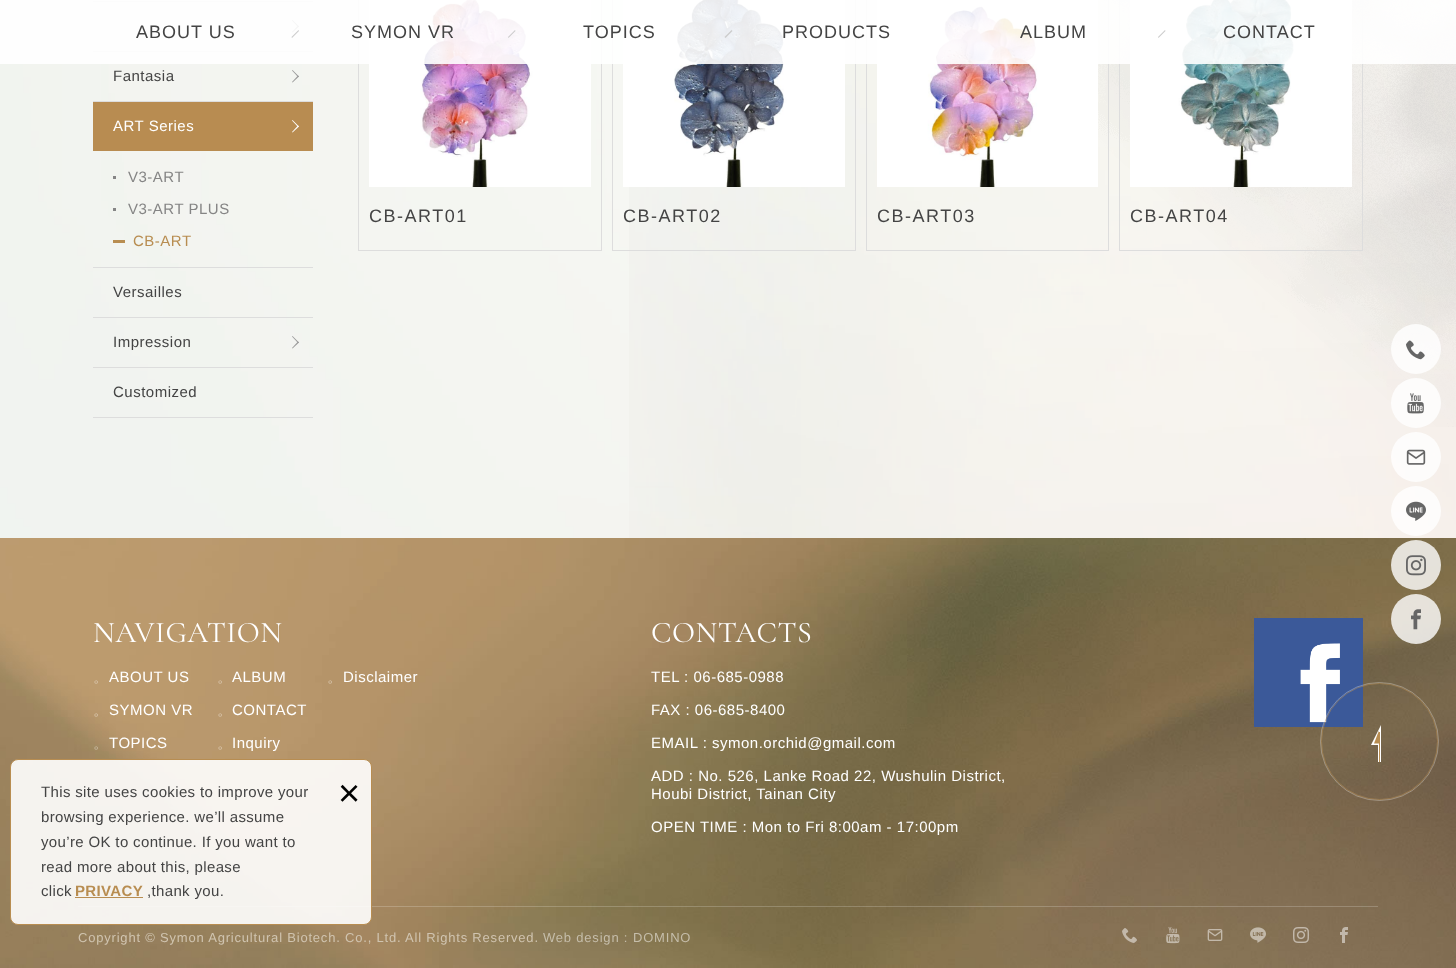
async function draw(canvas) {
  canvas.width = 1456
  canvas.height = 968
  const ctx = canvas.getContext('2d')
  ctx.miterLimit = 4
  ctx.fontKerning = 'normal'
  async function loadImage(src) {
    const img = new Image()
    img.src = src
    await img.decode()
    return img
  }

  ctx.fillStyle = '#fff'
  ctx.fillRect(0, 0, 1456, 968)
  ctx.drawImage(await loadImage('image0.png'), 0, 0, 1456, 538)
  ctx.drawImage(await loadImage('image1.png'), 629, 0, 827, 538)
  ctx.fillStyle = '#ddd'
  ctx.fillRect(93, 1, 220, 1)
  ctx.fillRect(93, 51, 220, 1)
  ctx.fillStyle = '#999'
  ctx.beginPath()
  ctx.moveTo(292.5, 20)
  ctx.lineTo(299, 26.5)
  ctx.lineTo(298, 27)
  ctx.lineTo(292, 20.5)
  ctx.closePath()
  ctx.fill()
  ctx.beginPath()
  ctx.moveTo(298, 25.5)
  ctx.lineTo(299, 26.5)
  ctx.lineTo(292.5, 32.5)
  ctx.lineTo(292, 32)
  ctx.closePath()
  ctx.fill()
  ctx.strokeStyle = '#ddd'
  ctx.strokeRect(358.5, -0.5, 243, 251)
  ctx.drawImage(await loadImage('image2.png'), 369, 0, 222, 187)
  ctx.strokeRect(612.5, -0.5, 243, 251)
  ctx.drawImage(await loadImage('image3.png'), 623, 0, 222, 187)
  ctx.drawImage(await loadImage('image6.png'), 1098, 0, 358, 427)
  ctx.strokeRect(866.5, -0.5, 242, 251)
  ctx.drawImage(await loadImage('image4.png'), 877, 0, 221, 187)
  ctx.strokeRect(1119.5, -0.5, 243, 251)
  ctx.drawImage(await loadImage('image5.png'), 1130, 0, 222, 187)
  ctx.fillStyle = '#ffffffe6'
  ctx.fillRect(0, 0, 1456, 64)
  ctx.letterSpacing = '1px'
  ctx.font = '18px Liberation Sans'
  ctx.fillStyle = '#444'
  ctx.fillText('ABOUT US', 136, 38)
  ctx.fillText('SYMON VR', 351, 38)
  ctx.fillStyle = '#ccc'
  ctx.beginPath()
  ctx.moveTo(298.5, 30)
  ctx.lineTo(299, 31)
  ctx.lineTo(292, 38)
  ctx.lineTo(291.5, 37)
  ctx.closePath()
  ctx.fill()
  ctx.fillStyle = '#444'
  ctx.fillText('TOPICS', 583, 38)
  ctx.fillStyle = '#ccc'
  ctx.beginPath()
  ctx.moveTo(515, 30)
  ctx.lineTo(515.5, 31)
  ctx.lineTo(508.5, 38)
  ctx.lineTo(508, 37)
  ctx.closePath()
  ctx.fill()
  ctx.fillStyle = '#444'
  ctx.fillText('PRODUCTS', 782, 38)
  ctx.fillStyle = '#ccc'
  ctx.beginPath()
  ctx.moveTo(731.5, 30)
  ctx.lineTo(732.5, 31)
  ctx.lineTo(725.5, 38)
  ctx.lineTo(724.5, 37)
  ctx.closePath()
  ctx.fill()
  ctx.fillStyle = '#444'
  ctx.fillText('ALBUM', 1020, 38)
  ctx.fillStyle = '#ccc'
  ctx.beginPath()
  ctx.moveTo(1165, 30)
  ctx.lineTo(1165.5, 31)
  ctx.lineTo(1158.5, 38)
  ctx.lineTo(1158, 37)
  ctx.closePath()
  ctx.fill()
  ctx.fillStyle = '#444'
  ctx.fillText('CONTACT', 1223, 38)
  ctx.drawImage(await loadImage('image7.png'), 0, 538, 1456, 430)
  ctx.fillStyle = '#ffffff33'
  ctx.fillRect(78, 906, 1300, 1)
  ctx.fillStyle = '#ffffffe6'
  ctx.beginPath()
  ctx.roundRect(10.5, 759.5, 361, 165, 7.5)
  ctx.fill()
  ctx.strokeStyle = '#b88d51'
  ctx.stroke()
  ctx.letterSpacing = '0.35px'
  ctx.font = '15px Liberation Sans'
  ctx.fillStyle = '#444'
  ctx.fillText('This site uses cookies to improve your', 41, 797)
  ctx.fillText('browsing experience. we’ll assume', 41, 822)
  ctx.fillText('you’re OK to continue. If you want to', 41, 847)
  ctx.fillText('read more about this, please', 41, 872)
  ctx.fillText('click', 41, 896)
  ctx.font = 'bold 15px Liberation Sans'
  ctx.fillStyle = '#b88d51'
  ctx.fillText('PRIVACY', 75, 896)
  ctx.fillRect(75, 897, 68, 1)
  ctx.font = '15px Liberation Sans'
  ctx.fillStyle = '#444'
  ctx.fillText(',thank you.', 147, 896)
  ctx.letterSpacing = '0px'
  ctx.font = '38px Liberation Sans'
  ctx.fillStyle = '#000'
  ctx.fillText('×', 338, 806)
  ctx.fillStyle = '#ddd'
  ctx.fillRect(93, 101, 220, 1)
  ctx.letterSpacing = '0.5px'
  ctx.font = '15px Liberation Sans'
  ctx.fillStyle = '#444'
  ctx.fillText('Fantasia', 113, 81)
  ctx.fillStyle = '#999'
  ctx.beginPath()
  ctx.moveTo(292.5, 70)
  ctx.lineTo(299, 76.5)
  ctx.lineTo(298, 77)
  ctx.lineTo(292, 70.5)
  ctx.closePath()
  ctx.fill()
  ctx.beginPath()
  ctx.moveTo(298, 75.5)
  ctx.lineTo(299, 76.5)
  ctx.lineTo(292.5, 82.5)
  ctx.lineTo(292, 82)
  ctx.closePath()
  ctx.fill()
  ctx.fillStyle = '#ddd'
  ctx.fillRect(93, 267, 220, 1)
  ctx.fillStyle = '#b88c51'
  ctx.fillRect(93, 102, 220, 49)
  ctx.fillStyle = '#fff'
  ctx.fillText('ART Series', 113, 131)
  ctx.beginPath()
  ctx.moveTo(292.5, 120)
  ctx.lineTo(299, 126.5)
  ctx.lineTo(298, 127)
  ctx.lineTo(292, 120.5)
  ctx.closePath()
  ctx.fill()
  ctx.beginPath()
  ctx.moveTo(298, 125.5)
  ctx.lineTo(299, 126.5)
  ctx.lineTo(292.5, 132.5)
  ctx.lineTo(292, 132)
  ctx.closePath()
  ctx.fill()
  ctx.fillStyle = '#858585'
  ctx.fillRect(113, 176, 3, 3)
  ctx.fillText('V3-ART', 128, 182)
  ctx.fillRect(113, 208, 3, 3)
  ctx.fillText('V3-ART PLUS', 128, 214)
  ctx.fillStyle = '#b88d51'
  ctx.fillRect(113, 240, 12, 3)
  ctx.fillText('CB-ART', 133, 246)
  ctx.fillStyle = '#ddd'
  ctx.fillRect(93, 317, 220, 1)
  ctx.fillStyle = '#444'
  ctx.fillText('Versailles', 113, 297)
  ctx.fillStyle = '#ddd'
  ctx.fillRect(93, 367, 220, 1)
  ctx.fillStyle = '#444'
  ctx.fillText('Impression', 113, 347)
  ctx.fillStyle = '#999'
  ctx.beginPath()
  ctx.moveTo(292.5, 336)
  ctx.lineTo(299, 342.5)
  ctx.lineTo(298, 343)
  ctx.lineTo(292, 336.5)
  ctx.closePath()
  ctx.fill()
  ctx.beginPath()
  ctx.moveTo(298, 341.5)
  ctx.lineTo(299, 342.5)
  ctx.lineTo(292.5, 348.5)
  ctx.lineTo(292, 348)
  ctx.closePath()
  ctx.fill()
  ctx.fillStyle = '#ddd'
  ctx.fillRect(93, 417, 220, 1)
  ctx.fillStyle = '#444'
  ctx.fillText('Customized', 113, 397)
  ctx.letterSpacing = '1.5px'
  ctx.font = '18px Liberation Sans'
  ctx.fillText('CB-ART01', 369, 222)
  ctx.fillText('CB-ART02', 623, 222)
  ctx.fillText('CB-ART03', 877, 222)
  ctx.fillText('CB-ART04', 1130, 222)
  ctx.letterSpacing = '0.5px'
  ctx.font = '30px Cormorant Infant'
  ctx.fillStyle = '#fff'
  ctx.fillText('NAVIGATION', 93, 642)
  ctx.font = '500 15px WenQuanYi Zen Hei'
  ctx.fillStyle = '#decdb7'
  ctx.fillText('。', 93, 682)
  ctx.font = '15px Liberation Sans'
  ctx.fillStyle = '#fff'
  ctx.fillText('ABOUT US', 109, 682)
  ctx.font = '500 15px WenQuanYi Zen Hei'
  ctx.fillStyle = '#decdb7'
  ctx.fillText('。', 93, 715)
  ctx.font = '15px Liberation Sans'
  ctx.fillStyle = '#fff'
  ctx.fillText('SYMON VR', 109, 715)
  ctx.font = '500 15px WenQuanYi Zen Hei'
  ctx.fillStyle = '#d0c4b0'
  ctx.fillText('。', 93, 748)
  ctx.font = '15px Liberation Sans'
  ctx.fillStyle = '#fff'
  ctx.fillText('TOPICS', 109, 748)
  ctx.font = '500 15px WenQuanYi Zen Hei'
  ctx.fillStyle = '#decdb7'
  ctx.fillText('。', 217, 682)
  ctx.font = '15px Liberation Sans'
  ctx.fillStyle = '#fff'
  ctx.fillText('ALBUM', 232, 682)
  ctx.font = '500 15px WenQuanYi Zen Hei'
  ctx.fillStyle = '#decdb7'
  ctx.fillText('。', 217, 715)
  ctx.font = '15px Liberation Sans'
  ctx.fillStyle = '#fff'
  ctx.fillText('CONTACT', 232, 715)
  ctx.font = '500 15px WenQuanYi Zen Hei'
  ctx.fillStyle = '#decdb7'
  ctx.fillText('。', 217, 748)
  ctx.font = '15px Liberation Sans'
  ctx.fillStyle = '#fff'
  ctx.fillText('Inquiry', 232, 748)
  ctx.font = '500 15px WenQuanYi Zen Hei'
  ctx.fillStyle = '#decdb7'
  ctx.fillText('。', 327, 682)
  ctx.font = '15px Liberation Sans'
  ctx.fillStyle = '#fff'
  ctx.fillText('Disclaimer', 343, 682)
  ctx.font = '30px Cormorant Infant'
  ctx.fillText('CONTACTS', 651, 642)
  ctx.font = '15px Liberation Sans'
  ctx.fillText('TEL : 06-685-0988', 651, 682)
  ctx.fillText('FAX : 06-685-8400', 651, 715)
  ctx.fillText('EMAIL : symon.orchid@gmail.com', 651, 748)
  ctx.fillText('ADD : No. 526, Lanke Road 22, Wushulin District,', 651, 781)
  ctx.fillText('Houbi District, Tainan City', 651, 799)
  ctx.fillText('OPEN TIME : Mon to Fri 8:00am - 17:00pm', 651, 832)
  ctx.drawImage(await loadImage('image8.png'), 1254, 618, 109, 109)
  ctx.drawImage(await loadImage('image9.png'), 1122, 928, 15, 15)
  ctx.drawImage(await loadImage('image10.png'), 1166, 927, 14, 17)
  ctx.drawImage(await loadImage('image11.png'), 1207, 929, 16, 12)
  ctx.drawImage(await loadImage('image12.png'), 1250, 927, 16, 16)
  ctx.drawImage(await loadImage('image13.png'), 1293, 927, 16, 16)
  ctx.drawImage(await loadImage('image14.png'), 1340, 927, 8, 16)
  ctx.beginPath()
  ctx.arc(1379.5, 741.5, 58, 0, 2 * Math.PI)
  ctx.strokeStyle = '#b88d5180'
  ctx.stroke()
  ctx.beginPath()
  ctx.arc(1379.5, 741.5, 59, 0, 2 * Math.PI)
  ctx.strokeStyle = '#ffffff4d'
  ctx.stroke()
  ctx.beginPath()
  ctx.moveTo(1381, 725)
  ctx.lineTo(1381, 745)
  ctx.lineTo(1371, 745)
  ctx.closePath()
  ctx.fill()
  ctx.fillRect(1378, 745, 3, 17)
  ctx.fillStyle = '#b88d51'
  ctx.beginPath()
  ctx.moveTo(1379, 730.5)
  ctx.lineTo(1379, 743.5)
  ctx.lineTo(1374, 743.5)
  ctx.closePath()
  ctx.fill()
  ctx.fillRect(1379, 732, 1, 30)
  ctx.letterSpacing = '0.8px'
  ctx.font = '13px Liberation Sans'
  ctx.fillStyle = '#d0c4b0'
  ctx.fillText('Copyright © Symon Agricultural Biotech. Co., Ltd. All Rights Reserved.', 78, 942)
  ctx.fillStyle = '#c5bdaa'
  ctx.fillText('Web design :', 543, 942)
  ctx.fillText('DOMINO', 633, 942)
  ctx.fillStyle = '#ffffffcc'
  ctx.beginPath()
  ctx.arc(1416, 349, 25, 0, 2 * Math.PI)
  ctx.fill()
  ctx.drawImage(await loadImage('image15.png'), 1406, 340, 19, 20)
  ctx.beginPath()
  ctx.arc(1416, 403, 25, 0, 2 * Math.PI)
  ctx.fill()
  ctx.drawImage(await loadImage('image16.png'), 1407, 393, 17, 21)
  ctx.beginPath()
  ctx.arc(1416, 457, 25, 0, 2 * Math.PI)
  ctx.fill()
  ctx.drawImage(await loadImage('image17.png'), 1406, 449, 20, 16)
  ctx.beginPath()
  ctx.arc(1416, 511, 25, 0, 2 * Math.PI)
  ctx.fill()
  ctx.drawImage(await loadImage('image18.png'), 1406, 501, 20, 20)
  ctx.beginPath()
  ctx.arc(1416, 565, 25, 0, 2 * Math.PI)
  ctx.fill()
  ctx.drawImage(await loadImage('image19.png'), 1406, 555, 20, 21)
  ctx.beginPath()
  ctx.arc(1416, 619, 25, 0, 2 * Math.PI)
  ctx.fill()
  ctx.drawImage(await loadImage('image20.png'), 1411, 609, 10, 21)
}

draw(document.querySelector('canvas'))
